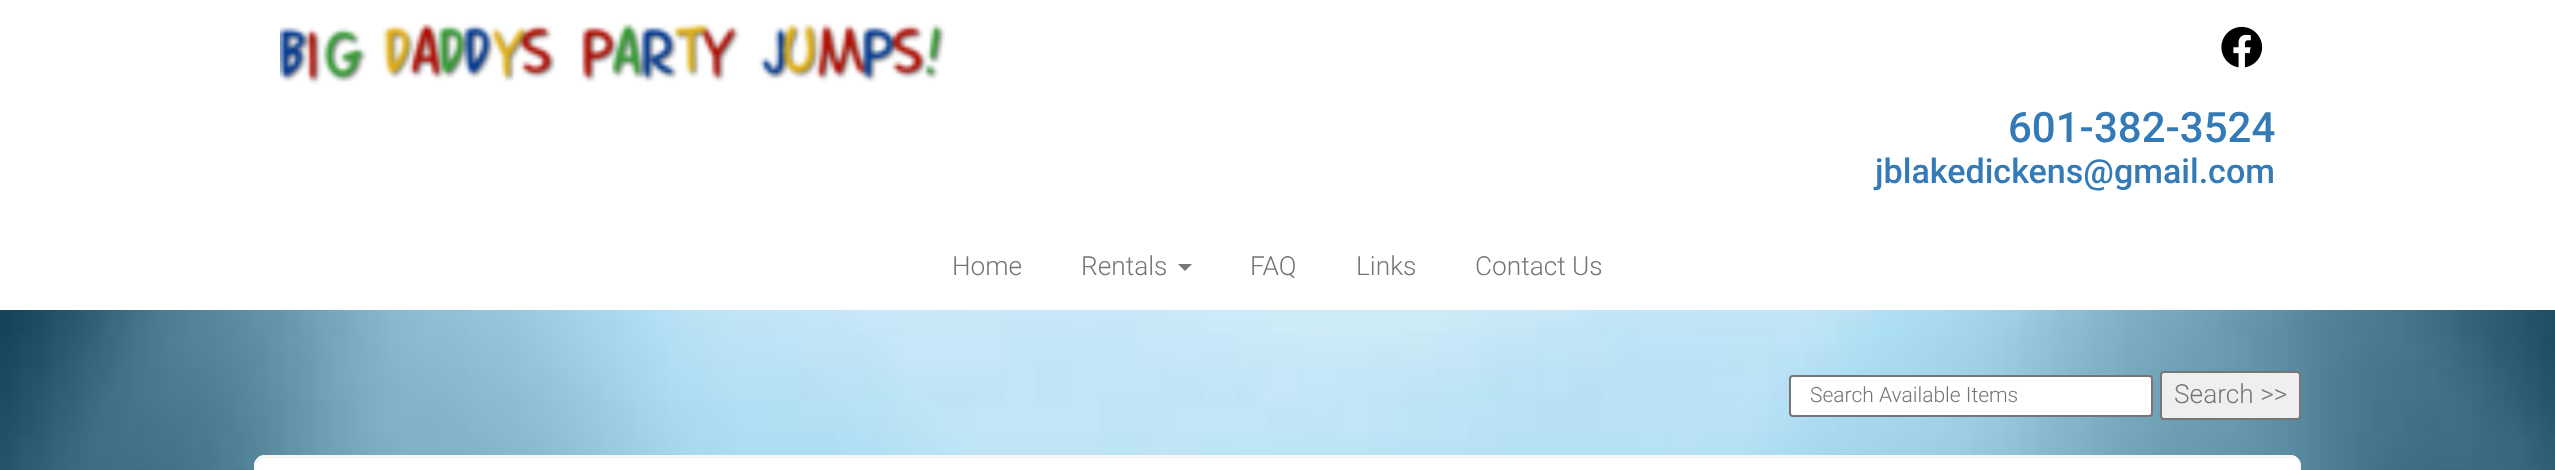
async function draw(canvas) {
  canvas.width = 2555
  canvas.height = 470
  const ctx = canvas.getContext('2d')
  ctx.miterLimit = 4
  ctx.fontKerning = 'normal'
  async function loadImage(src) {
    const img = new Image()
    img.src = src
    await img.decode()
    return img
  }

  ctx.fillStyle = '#fff'
  ctx.fillRect(0, 0, 2555, 470)
  ctx.drawImage(await loadImage('image0.png'), 0, 310, 2555, 160)
  ctx.drawImage(await loadImage('image1.png'), 280, 23, 665, 61)
  ctx.drawImage(await loadImage('image2.png'), 2221, 26, 42, 42)
  ctx.font = '500 42px Roboto'
  ctx.fillStyle = '#337ab7'
  ctx.fillText('601-382-3524', 2008, 142)
  ctx.font = '500 34.1px Roboto'
  ctx.fillText('jblakedickens@gmail.com', 1875, 183)
  ctx.font = '300 26.25px Roboto'
  ctx.fillStyle = '#757575'
  ctx.fillText('Home', 952, 275)
  ctx.fillText('Rentals', 1081, 275)
  ctx.fillStyle = '#777'
  ctx.beginPath()
  ctx.moveTo(1178, 264)
  ctx.lineTo(1192, 264)
  ctx.lineTo(1185, 271)
  ctx.closePath()
  ctx.fill()
  ctx.fillStyle = '#757575'
  ctx.fillText('FAQ', 1250, 275)
  ctx.fillText('Links', 1356, 275)
  ctx.fillText('Contact Us', 1475, 275)
  ctx.fillStyle = '#fff'
  ctx.beginPath()
  ctx.roundRect(1790, 376, 362, 40, 3)
  ctx.fill()
  ctx.strokeStyle = '#767676'
  ctx.lineWidth = 2
  ctx.stroke()
  ctx.font = '300 21px Roboto'
  ctx.fillStyle = '#757575'
  ctx.fillText('Search Available Items', 1810, 402)
  ctx.fillStyle = '#efefef'
  ctx.beginPath()
  ctx.roundRect(2161, 372, 139, 47, 3)
  ctx.fill()
  ctx.stroke()
  ctx.font = '300 26.25px Roboto'
  ctx.fillStyle = '#757575'
  ctx.fillText('Search >>', 2174, 403)
  ctx.fillStyle = '#fff'
  ctx.beginPath()
  ctx.roundRect(254, 455, 2047, 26, 11)
  ctx.fill()
  ctx.fillStyle = '#f2f2f2'
  ctx.beginPath()
  ctx.moveTo(264, 458)
  ctx.lineTo(2291, 458)
  ctx.bezierCurveTo(2296, 458, 2300, 462, 2300, 467)
  ctx.bezierCurveTo(2300, 462, 2297, 457, 2291, 457)
  ctx.lineTo(265, 457)
  ctx.bezierCurveTo(259, 457, 256, 462, 256, 467)
  ctx.bezierCurveTo(256, 462, 259, 458, 264, 458)
  ctx.closePath()
  ctx.fill()
  ctx.beginPath()
  ctx.roundRect(255, 456, 2045, 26, 10)
  ctx.strokeStyle = '#f9f8f8'
  ctx.stroke()
}

draw(document.querySelector('canvas'))
